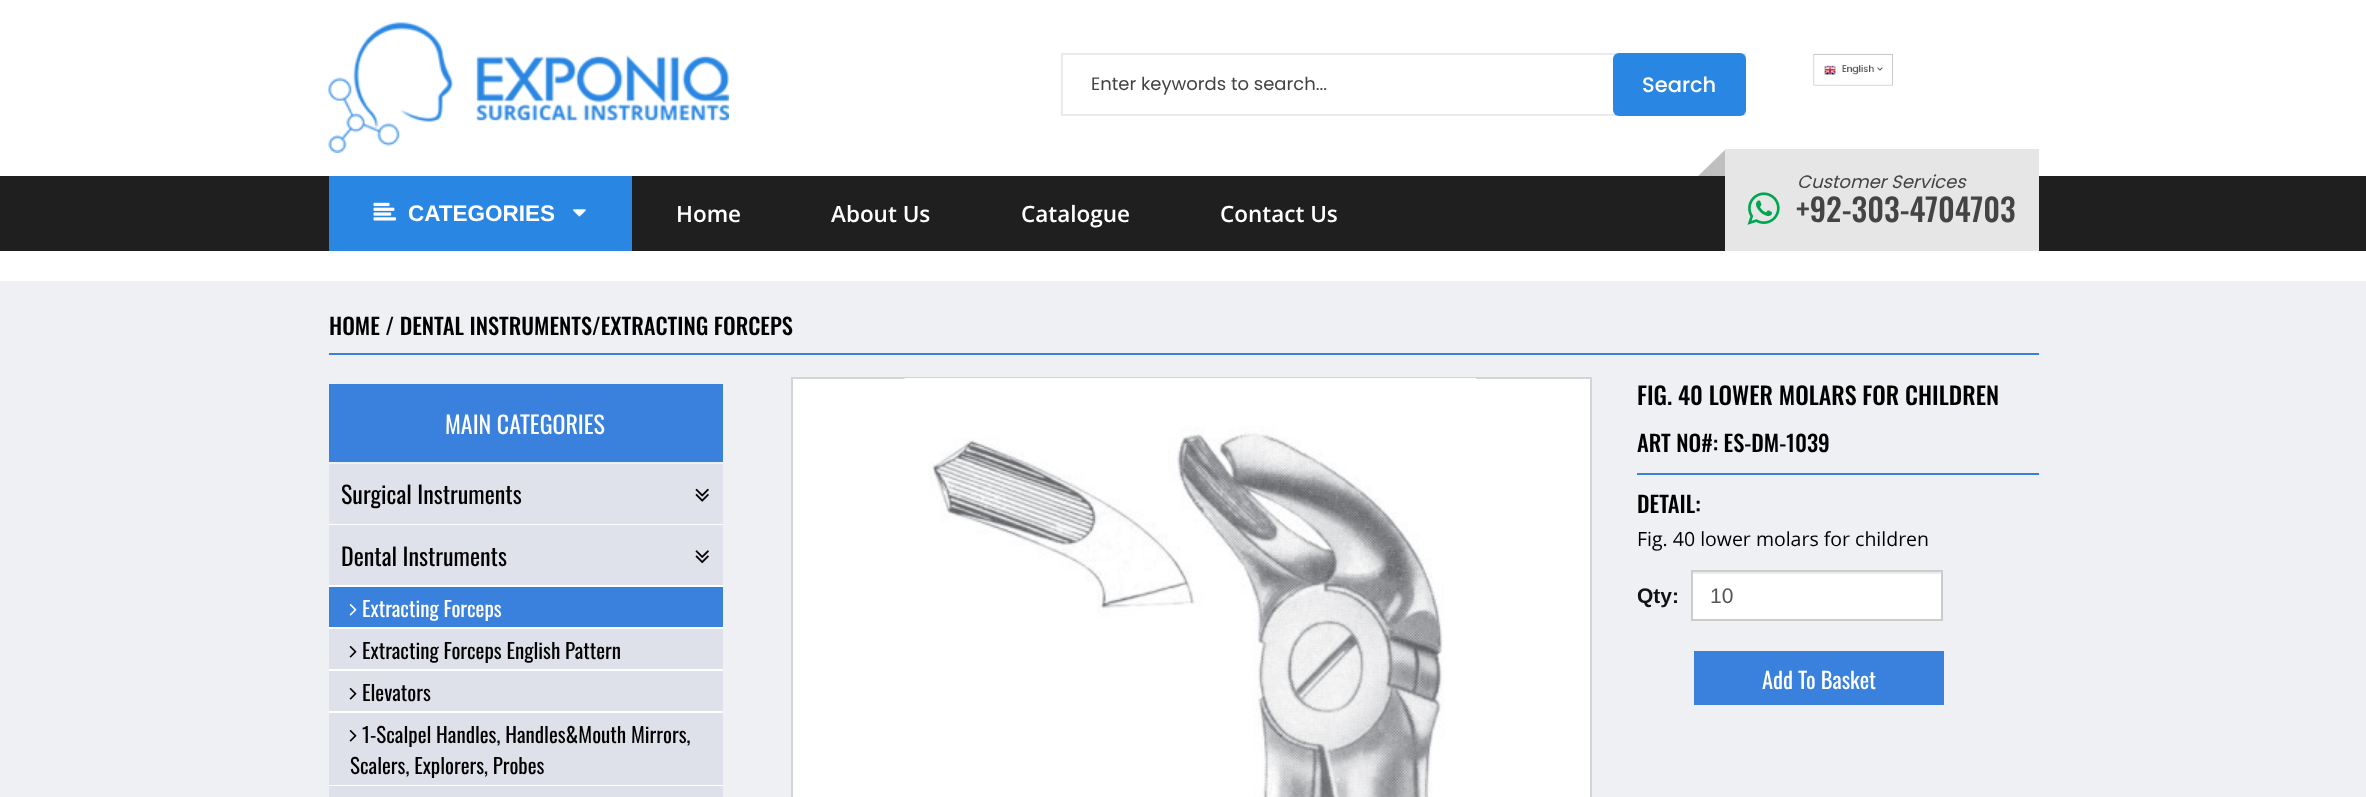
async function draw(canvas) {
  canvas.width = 2366
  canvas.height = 797
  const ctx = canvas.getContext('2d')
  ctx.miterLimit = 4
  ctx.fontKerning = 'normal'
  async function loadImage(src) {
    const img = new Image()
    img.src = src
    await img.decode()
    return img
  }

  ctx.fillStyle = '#fff'
  ctx.fillRect(0, 0, 2366, 797)
  ctx.drawImage(await loadImage('image0.png'), 328, 22, 401, 131)
  ctx.strokeStyle = '#eaeaea'
  ctx.lineWidth = 2
  ctx.strokeRect(1062, 54, 683, 61)
  ctx.font = '18px Poppins'
  ctx.fillStyle = '#444'
  ctx.fillText('Enter keywords to search...', 1091, 90)
  ctx.fillStyle = '#2986e2'
  ctx.beginPath()
  ctx.roundRect(1613, 53, 133, 63, 6)
  ctx.fill()
  ctx.font = '500 21px Poppins'
  ctx.fillStyle = '#fff'
  ctx.fillText('Search', 1642, 92)
  ctx.drawImage(await loadImage('image1.png'), 1813, 54, 80, 32)
  ctx.fillStyle = '#bfbfbf'
  ctx.beginPath()
  ctx.moveTo(1726, 149)
  ctx.lineTo(1747, 170)
  ctx.lineTo(1718, 199)
  ctx.lineTo(1696, 178)
  ctx.closePath()
  ctx.fill()
  ctx.fillStyle = '#1f1f1f'
  ctx.fillRect(0, 176, 2366, 75)
  ctx.fillStyle = '#2986e2'
  ctx.fillRect(329, 176, 303, 75)
  ctx.drawImage(await loadImage('image2.png'), 373, 202, 23, 19)
  ctx.font = 'bold 22.5px Liberation Sans'
  ctx.fillStyle = '#fff'
  ctx.fillText('CATEGORIES', 408, 221)
  ctx.drawImage(await loadImage('image3.png'), 573, 209, 13, 8)
  ctx.font = '600 22.5px Open Sans'
  ctx.fillText('Home', 676, 222)
  ctx.fillText('About Us', 831, 222)
  ctx.fillText('Catalogue', 1021, 222)
  ctx.fillText('Contact Us', 1220, 222)
  ctx.fillStyle = '#e6e6e6'
  ctx.fillRect(1725, 149, 314, 102)
  ctx.font = 'italic 18px Poppins'
  ctx.fillStyle = '#444'
  ctx.fillText('Customer Services', 1797, 188)
  ctx.drawImage(await loadImage('image4.png'), 1747, 192, 33, 33)
  ctx.font = '500 31.5px Oswald'
  ctx.fillText('+92-303-4704703', 1796, 222)
  ctx.fillStyle = '#eef0f4'
  ctx.fillRect(0, 281, 2366, 516)
  ctx.fillStyle = '#3a80dd'
  ctx.fillRect(329, 353, 1710, 2)
  ctx.font = '500 22.5px Oswald'
  ctx.fillStyle = '#000'
  ctx.fillText('HOME / DENTAL INSTRUMENTS/EXTRACTING FORCEPS', 329, 335)
  ctx.fillStyle = '#3a80dd'
  ctx.fillRect(329, 384, 394, 78)
  ctx.font = '24px Oswald'
  ctx.fillStyle = '#fff'
  ctx.fillText('MAIN CATEGORIES', 445, 434)
  ctx.fillStyle = '#dfe2eb'
  ctx.fillRect(329, 464, 394, 60)
  ctx.fillStyle = '#fff'
  ctx.fillRect(329, 524, 394, 1)
  ctx.fillStyle = '#000'
  ctx.fillText('Surgical Instruments', 341, 504)
  ctx.drawImage(await loadImage('image5.png'), 695, 488, 14, 14)
  ctx.fillStyle = '#dfe2eb'
  ctx.fillRect(329, 525, 394, 60)
  ctx.fillStyle = '#fff'
  ctx.fillRect(329, 585, 394, 2)
  ctx.fillStyle = '#000'
  ctx.fillText('Dental Instruments', 341, 566)
  ctx.drawImage(await loadImage('image6.png'), 695, 550, 14, 14)
  ctx.fillStyle = '#3a80dd'
  ctx.fillRect(329, 587, 394, 40)
  ctx.fillStyle = '#fff'
  ctx.fillRect(329, 627, 394, 2)
  ctx.drawImage(await loadImage('image7.png'), 349, 604, 8, 12)
  ctx.font = '21px Oswald'
  ctx.fillText('Extracting Forceps', 362, 617)
  ctx.fillStyle = '#dee1ea'
  ctx.fillRect(329, 629, 394, 40)
  ctx.fillStyle = '#fff'
  ctx.fillRect(329, 669, 394, 2)
  ctx.drawImage(await loadImage('image8.png'), 349, 646, 8, 12)
  ctx.fillStyle = '#000'
  ctx.fillText('Extracting Forceps English Pattern', 362, 659)
  ctx.fillStyle = '#dee1ea'
  ctx.fillRect(329, 671, 394, 40)
  ctx.fillStyle = '#fff'
  ctx.fillRect(329, 711, 394, 2)
  ctx.drawImage(await loadImage('image8.png'), 349, 688, 8, 12)
  ctx.fillStyle = '#000'
  ctx.fillText('Elevators', 362, 701)
  ctx.fillStyle = '#dee1ea'
  ctx.fillRect(329, 713, 394, 72)
  ctx.fillStyle = '#fff'
  ctx.fillRect(329, 785, 394, 1)
  ctx.drawImage(await loadImage('image8.png'), 349, 730, 8, 12)
  ctx.fillStyle = '#000'
  ctx.fillText('1-Scalpel Handles, Handles&Mouth Mirrors,', 362, 743)
  ctx.fillText('Scalers, Explorers, Probes', 350, 774)
  ctx.fillStyle = '#dee1ea'
  ctx.fillRect(329, 786, 394, 11)
  ctx.fillStyle = '#fff'
  ctx.beginPath()
  ctx.rect(792, 378, 799, 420)
  ctx.fill()
  ctx.strokeStyle = '#d4d4d4'
  ctx.stroke()
  ctx.drawImage(await loadImage('image9.png'), 904, 378, 572, 419)
  ctx.font = '500 24px Oswald'
  ctx.fillStyle = '#000'
  ctx.fillText('FIG. 40 LOWER MOLARS FOR CHILDREN', 1637, 405)
  ctx.fillStyle = '#3a80dd'
  ctx.fillRect(1637, 473, 402, 2)
  ctx.font = '500 22.5px Oswald'
  ctx.fillStyle = '#000'
  ctx.fillText('ART NO#: ES-DM-1039', 1637, 452)
  ctx.fillText('DETAIL:', 1637, 513)
  ctx.font = '19.5px Open Sans'
  ctx.fillText('Fig. 40 lower molars for children', 1637, 546)
  ctx.font = 'bold 21px Liberation Sans'
  ctx.fillStyle = '#111'
  ctx.fillText('Qty:', 1637, 603)
  ctx.fillStyle = '#fff'
  ctx.fillRect(1693, 574, 248, 45)
  ctx.fillStyle = '#ececec'
  ctx.fillRect(1692, 572, 249, 2)
  ctx.strokeStyle = '#ccc'
  ctx.strokeRect(1692, 571, 250, 49)
  ctx.font = '21px Liberation Sans'
  ctx.fillStyle = '#555'
  ctx.fillText('10', 1710, 603)
  ctx.fillStyle = '#3a80dd'
  ctx.fillRect(1694, 651, 250, 54)
  ctx.font = '22.5px Oswald'
  ctx.fillStyle = '#fff'
  ctx.fillText('Add To Basket', 1762, 689)
}

draw(document.querySelector('canvas'))
